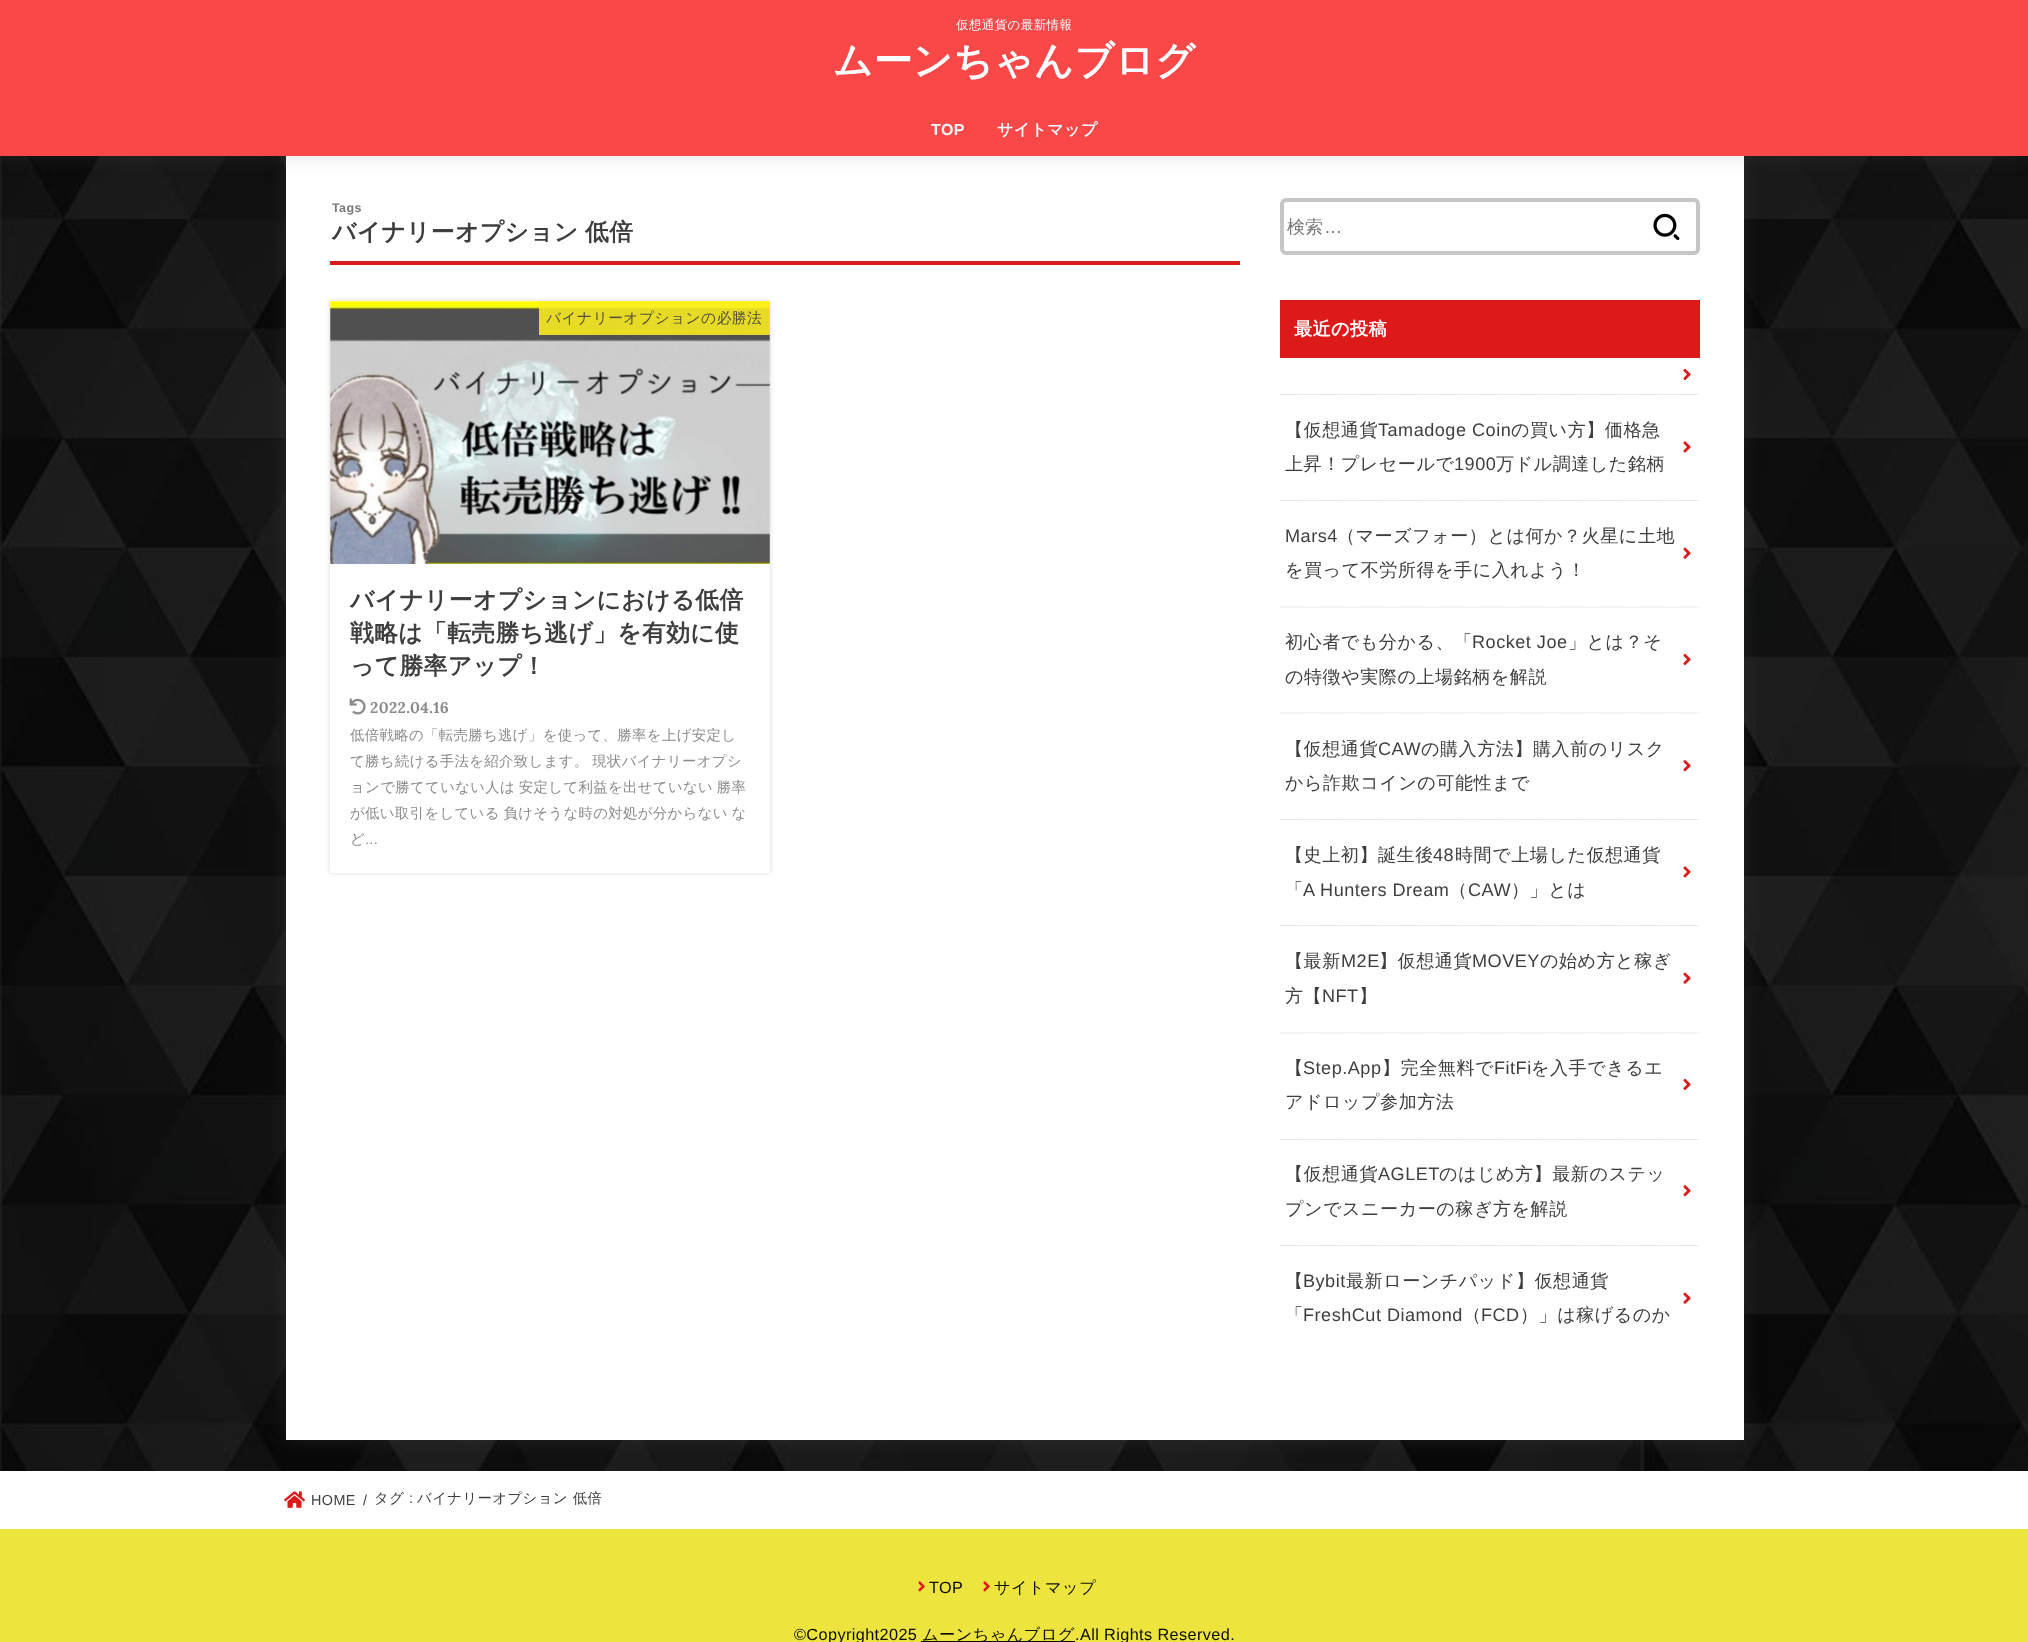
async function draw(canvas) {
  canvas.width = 2028
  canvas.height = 1642
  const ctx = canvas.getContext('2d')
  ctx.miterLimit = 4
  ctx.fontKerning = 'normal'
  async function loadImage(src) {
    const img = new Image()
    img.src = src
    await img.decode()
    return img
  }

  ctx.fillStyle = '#fff'
  ctx.fillRect(0, 0, 2028, 1642)
  ctx.drawImage(await loadImage('image0.png'), 0, 156, 2028, 1315)
  ctx.fillStyle = '#66666633'
  ctx.filter = 'blur(9.5px)'
  ctx.beginPath()
  ctx.rect(286, 154, 1458, 1286)
  ctx.fill()
  ctx.filter = 'none'
  ctx.fillStyle = '#fff'
  ctx.fillRect(286, 156, 1458, 1284)
  ctx.fillStyle = '#66666633'
  ctx.filter = 'blur(9.5px)'
  ctx.beginPath()
  ctx.rect(0, 0, 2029, 156)
  ctx.fill()
  ctx.filter = 'none'
  ctx.fillStyle = '#f94848'
  ctx.fillRect(0, 0, 2028, 156)
  ctx.letterSpacing = '0.4px'
  ctx.font = '500 12.5px WenQuanYi Zen Hei'
  ctx.fillStyle = '#edf9fc'
  ctx.fillText('仮想通貨の最新情報', 956, 29)
  ctx.font = 'bold 39.1px WenQuanYi Zen Hei'
  ctx.fillStyle = '#fff'
  ctx.fillText('ムーンちゃんブログ', 833, 74)
  ctx.font = 'bold 16px Liberation Sans'
  ctx.fillStyle = '#edf9fc'
  ctx.fillText('TOP', 931, 135)
  ctx.font = 'bold 16px WenQuanYi Zen Hei'
  ctx.fillText('サイトマップ', 997, 135)
  ctx.fillStyle = '#dd1a1a'
  ctx.fillRect(330, 261, 910, 4)
  ctx.font = 'bold 12.5px Liberation Sans'
  ctx.fillStyle = '#787878'
  ctx.fillText('Tags', 332, 212)
  ctx.wordSpacing = '-1px'
  ctx.font = 'bold 23.75px WenQuanYi Zen Hei'
  ctx.fillStyle = '#3e3e3e'
  ctx.fillText('バイナリーオプション 低倍', 332, 240)
  ctx.save()
  ctx.beginPath()
  ctx.moveTo(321, 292)
  ctx.lineTo(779, 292)
  ctx.lineTo(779, 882)
  ctx.lineTo(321, 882)
  ctx.closePath()
  ctx.moveTo(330, 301)
  ctx.lineTo(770, 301)
  ctx.lineTo(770, 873)
  ctx.lineTo(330, 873)
  ctx.closePath()
  ctx.clip('evenodd')
  ctx.fillStyle = '#00000026'
  ctx.filter = 'blur(2.5px)'
  ctx.beginPath()
  ctx.rect(330, 301, 440, 572)
  ctx.fill()
  ctx.filter = 'none'
  ctx.restore()
  ctx.drawImage(await loadImage('image1.png'), 330, 301, 440, 263)
  ctx.fillStyle = '#fcee21e0'
  ctx.fillRect(539, 301, 231, 34)
  ctx.wordSpacing = '0px'
  ctx.font = '500 14.8px WenQuanYi Zen Hei'
  ctx.fillStyle = '#52513b'
  ctx.fillText('バイナリーオプションの必勝法', 546, 323)
  ctx.font = 'bold 23.75px WenQuanYi Zen Hei'
  ctx.fillStyle = '#3e3e3e'
  ctx.fillText('バイナリーオプションにおける低倍', 350, 608)
  ctx.fillText('戦略は「転売勝ち逃げ」を有効に使', 350, 641)
  ctx.fillText('って勝率アップ！', 350, 674)
  ctx.drawImage(await loadImage('image2.png'), 349, 698, 17, 17)
  ctx.font = 'bold 15.5px Lora'
  ctx.fillStyle = '#8b8b8b'
  ctx.fillText('2022.04.16', 370, 713)
  ctx.letterSpacing = '0.35px'
  ctx.font = '500 14.4px WenQuanYi Zen Hei'
  ctx.fillText('低倍戦略の「転売勝ち逃げ」を使って、勝率を上げ安定し', 350, 740)
  ctx.wordSpacing = '-1px'
  ctx.fillText('て勝ち続ける手法を紹介致します。 現状バイナリーオプシ', 350, 766)
  ctx.fillText('ョンで勝てていない人は 安定して利益を出せていない 勝率', 350, 792)
  ctx.fillText('が低い取引をしている 負けそうな時の対処が分からない な', 350, 818)
  ctx.wordSpacing = '0px'
  ctx.fillText('ど', 350, 844)
  ctx.font = '14.4px Liberation Sans'
  ctx.fillText('...', 365, 844)
  ctx.beginPath()
  ctx.roundRect(1282, 200, 416, 53, 4)
  ctx.strokeStyle = '#c6c6c6'
  ctx.lineWidth = 4
  ctx.stroke()
  ctx.letterSpacing = '0px'
  ctx.font = '500 18.1px WenQuanYi Zen Hei'
  ctx.fillStyle = '#787878'
  ctx.fillText('検索', 1287, 233)
  ctx.font = '18.1px Liberation Sans'
  ctx.fillText('…', 1324, 233)
  ctx.drawImage(await loadImage('image3.png'), 1653, 213, 27, 28)
  ctx.fillStyle = '#dd1a1a'
  ctx.fillRect(1280, 300, 420, 58)
  ctx.letterSpacing = '0.4px'
  ctx.font = 'bold 18.1px WenQuanYi Zen Hei'
  ctx.fillStyle = '#fff'
  ctx.fillText('最近の投稿', 1294, 335)
  ctx.beginPath()
  ctx.moveTo(1280, 394.5)
  ctx.lineTo(1700, 394.5)
  ctx.strokeStyle = '#d8d8d8'
  ctx.lineWidth = 1.2
  ctx.setLineDash([1.25, 1.25])
  ctx.stroke()
  ctx.drawImage(await loadImage('image4.png'), 1683, 368, 8, 12)
  ctx.beginPath()
  ctx.moveTo(1280, 500.5)
  ctx.lineTo(1700, 500.5)
  ctx.stroke()
  ctx.letterSpacing = '0.5px'
  ctx.font = '500 18.1px WenQuanYi Zen Hei'
  ctx.fillStyle = '#3e3e3e'
  ctx.fillText('【仮想通貨', 1285, 436)
  ctx.font = '18.1px Liberation Sans'
  ctx.fillText('Tamadoge Coin', 1378, 436)
  ctx.font = '500 18.1px WenQuanYi Zen Hei'
  ctx.fillText('の買い方】価格急', 1511, 436)
  ctx.fillText('上昇！プレセールで', 1285, 470)
  ctx.font = '18.1px Liberation Sans'
  ctx.fillText('1900', 1454, 470)
  ctx.font = '500 18.1px WenQuanYi Zen Hei'
  ctx.fillText('万ドル調達した銘柄', 1496, 470)
  ctx.drawImage(await loadImage('image5.png'), 1683, 441, 8, 12)
  ctx.beginPath()
  ctx.moveTo(1280, 607)
  ctx.lineTo(1700, 607)
  ctx.stroke()
  ctx.font = '18.1px Liberation Sans'
  ctx.fillText('Mars4', 1285, 542)
  ctx.font = '500 18.1px WenQuanYi Zen Hei'
  ctx.fillText('（マーズフォー）とは何か？火星に土地', 1337, 542)
  ctx.fillText('を買って不労所得を手に入れよう！', 1285, 576)
  ctx.drawImage(await loadImage('image6.png'), 1683, 547, 8, 12)
  ctx.beginPath()
  ctx.moveTo(1280, 713)
  ctx.lineTo(1700, 713)
  ctx.stroke()
  ctx.fillText('初心者でも分かる、「', 1285, 648)
  ctx.font = '18.1px Liberation Sans'
  ctx.fillText('Rocket Joe', 1472, 648)
  ctx.font = '500 18.1px WenQuanYi Zen Hei'
  ctx.fillText('」とは？そ', 1568, 648)
  ctx.fillText('の特徴や実際の上場銘柄を解説', 1285, 683)
  ctx.drawImage(await loadImage('image4.png'), 1683, 653, 8, 12)
  ctx.beginPath()
  ctx.moveTo(1280, 819.5)
  ctx.lineTo(1700, 819.5)
  ctx.stroke()
  ctx.fillText('【仮想通貨', 1285, 755)
  ctx.font = '18.1px Liberation Sans'
  ctx.fillText('CAW', 1378, 755)
  ctx.font = '500 18.1px WenQuanYi Zen Hei'
  ctx.fillText('の購入方法】購入前のリスク', 1421, 755)
  ctx.fillText('から詐欺コインの可能性まで', 1285, 789)
  ctx.drawImage(await loadImage('image7.png'), 1683, 760, 8, 12)
  ctx.beginPath()
  ctx.moveTo(1280, 925.5)
  ctx.lineTo(1700, 925.5)
  ctx.stroke()
  ctx.fillText('【史上初】誕生後', 1285, 861)
  ctx.font = '18.1px Liberation Sans'
  ctx.fillText('48', 1433, 861)
  ctx.font = '500 18.1px WenQuanYi Zen Hei'
  ctx.fillText('時間で上場した仮想通貨', 1455, 861)
  ctx.fillText('「', 1285, 896)
  ctx.font = '18.1px Liberation Sans'
  ctx.fillText('A Hunters Dream', 1303, 896)
  ctx.font = '500 18.1px WenQuanYi Zen Hei'
  ctx.fillText('（', 1449, 896)
  ctx.font = '18.1px Liberation Sans'
  ctx.fillText('CAW', 1468, 896)
  ctx.font = '500 18.1px WenQuanYi Zen Hei'
  ctx.fillText('）」とは', 1511, 896)
  ctx.drawImage(await loadImage('image5.png'), 1683, 866, 8, 12)
  ctx.beginPath()
  ctx.moveTo(1280, 1033)
  ctx.lineTo(1700, 1033)
  ctx.stroke()
  ctx.fillText('【最新', 1285, 967)
  ctx.font = '18.1px Liberation Sans'
  ctx.fillText('M2E', 1341, 967)
  ctx.font = '500 18.1px WenQuanYi Zen Hei'
  ctx.fillText('】仮想通貨', 1379, 967)
  ctx.font = '18.1px Liberation Sans'
  ctx.fillText('MOVEY', 1472, 967)
  ctx.font = '500 18.1px WenQuanYi Zen Hei'
  ctx.fillText('の始め方と稼ぎ', 1540, 967)
  ctx.fillText('方【', 1285, 1002)
  ctx.font = '18.1px Liberation Sans'
  ctx.fillText('NFT', 1322, 1002)
  ctx.font = '500 18.1px WenQuanYi Zen Hei'
  ctx.fillText('】', 1359, 1002)
  ctx.drawImage(await loadImage('image6.png'), 1683, 972, 8, 12)
  ctx.beginPath()
  ctx.moveTo(1280, 1139.5)
  ctx.lineTo(1700, 1139.5)
  ctx.stroke()
  ctx.fillText('【', 1285, 1074)
  ctx.font = '18.1px Liberation Sans'
  ctx.fillText('Step.App', 1303, 1074)
  ctx.font = '500 18.1px WenQuanYi Zen Hei'
  ctx.fillText('】完全無料で', 1382, 1074)
  ctx.font = '18.1px Liberation Sans'
  ctx.fillText('FitFi', 1494, 1074)
  ctx.font = '500 18.1px WenQuanYi Zen Hei'
  ctx.fillText('を入手できるエ', 1531, 1074)
  ctx.fillText('アドロップ参加方法', 1285, 1108)
  ctx.drawImage(await loadImage('image4.png'), 1683, 1078, 8, 12)
  ctx.beginPath()
  ctx.moveTo(1280, 1245.5)
  ctx.lineTo(1700, 1245.5)
  ctx.stroke()
  ctx.fillText('【仮想通貨', 1285, 1180)
  ctx.font = '18.1px Liberation Sans'
  ctx.fillText('AGLET', 1378, 1180)
  ctx.font = '500 18.1px WenQuanYi Zen Hei'
  ctx.fillText('のはじめ方】最新のステッ', 1439, 1180)
  ctx.fillText('プンでスニーカーの稼ぎ方を解説', 1285, 1215)
  ctx.drawImage(await loadImage('image7.png'), 1683, 1185, 8, 12)
  ctx.fillText('【', 1285, 1287)
  ctx.font = '18.1px Liberation Sans'
  ctx.fillText('Bybit', 1303, 1287)
  ctx.font = '500 18.1px WenQuanYi Zen Hei'
  ctx.fillText('最新ローンチパッド】仮想通貨', 1346, 1287)
  ctx.fillText('「', 1285, 1321)
  ctx.font = '18.1px Liberation Sans'
  ctx.fillText('FreshCut Diamond', 1303, 1321)
  ctx.font = '500 18.1px WenQuanYi Zen Hei'
  ctx.fillText('（', 1463, 1321)
  ctx.font = '18.1px Liberation Sans'
  ctx.fillText('FCD', 1481, 1321)
  ctx.font = '500 18.1px WenQuanYi Zen Hei'
  ctx.fillText('）」は稼げるのか', 1520, 1321)
  ctx.drawImage(await loadImage('image6.png'), 1683, 1292, 8, 12)
  ctx.drawImage(await loadImage('image8.png'), 284, 1491, 21, 17)
  ctx.letterSpacing = '0.4px'
  ctx.font = '14.4px Liberation Sans'
  ctx.fillText('HOME', 311, 1505)
  ctx.fillText('/', 363, 1505)
  ctx.font = '500 14.4px WenQuanYi Zen Hei'
  ctx.fillText('タグ', 374, 1503)
  ctx.font = '14.4px Liberation Sans'
  ctx.fillText(':', 409, 1503)
  ctx.font = '500 14.4px WenQuanYi Zen Hei'
  ctx.fillText('バイナリーオプション 低倍', 417, 1503)
  ctx.fillStyle = '#ede43d'
  ctx.fillRect(0, 1529, 2028, 113)
  ctx.drawImage(await loadImage('image9.png'), 918, 1581, 7, 11)
  ctx.font = '16.25px Liberation Sans'
  ctx.fillStyle = '#0a0a0a'
  ctx.fillText('TOP', 929, 1593)
  ctx.drawImage(await loadImage('image9.png'), 983, 1581, 7, 11)
  ctx.font = '500 16.25px WenQuanYi Zen Hei'
  ctx.fillText('サイトマップ', 994, 1593)
  ctx.font = '16.25px Liberation Sans'
  ctx.fillText('©Copyright2025', 794, 1640)
  ctx.fillRect(921, 1641, 154, 1)
  ctx.font = '500 16.25px WenQuanYi Zen Hei'
  ctx.fillText('ムーンちゃんブログ', 922, 1640)
  ctx.font = '16.25px Liberation Sans'
  ctx.fillText('.All Rights Reserved.', 1075, 1640)
}

draw(document.querySelector('canvas'))
